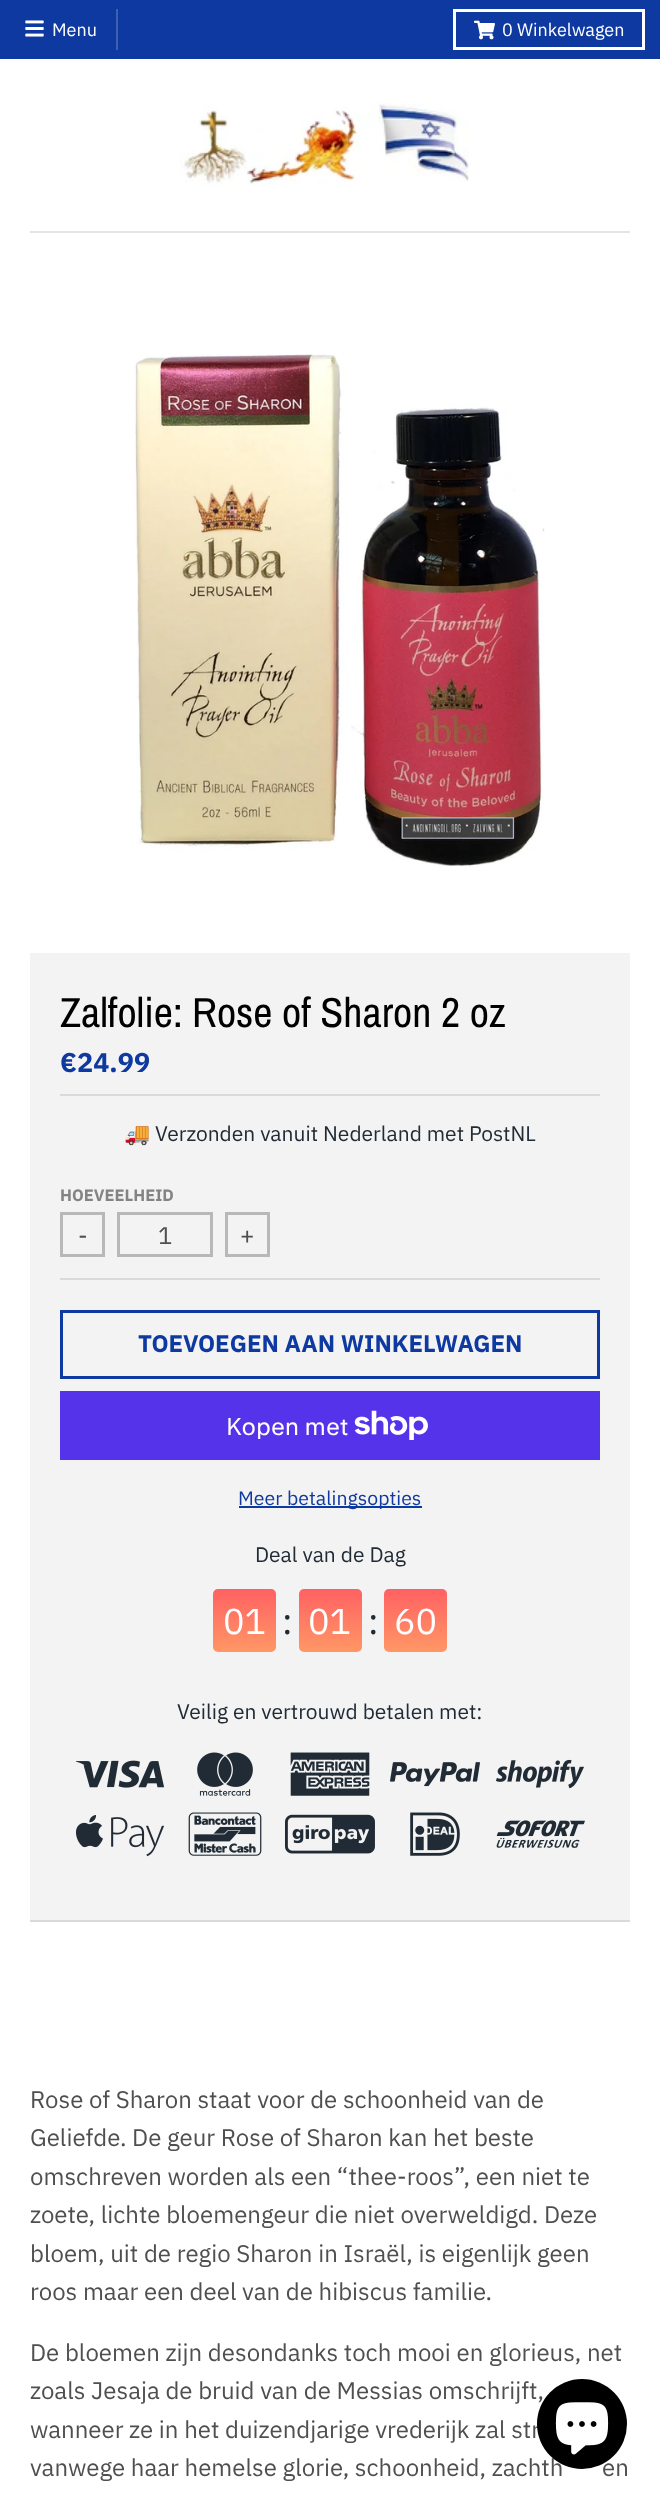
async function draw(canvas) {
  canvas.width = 660
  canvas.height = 2500
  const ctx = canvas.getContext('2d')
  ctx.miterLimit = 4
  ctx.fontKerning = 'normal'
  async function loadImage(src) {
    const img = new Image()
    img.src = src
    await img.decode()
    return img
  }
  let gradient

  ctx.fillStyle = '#fff'
  ctx.fillRect(0, 0, 660, 2500)
  ctx.fillStyle = '#0d39a1'
  ctx.fillRect(0, 0, 660, 59)
  ctx.fillStyle = '#3d60b3'
  ctx.fillRect(116, 9, 2, 41)
  ctx.drawImage(await loadImage('image0.png'), 25, 20, 19, 17)
  ctx.font = '18px IBM Plex Sans'
  ctx.fillStyle = '#fff'
  ctx.fillText('Menu', 52, 36)
  ctx.strokeStyle = '#fff'
  ctx.lineWidth = 3
  ctx.strokeRect(454.5, 10.5, 189, 38)
  ctx.drawImage(await loadImage('image1.png'), 474, 20, 21, 20)
  ctx.fillText('0 Winkelwagen', 502, 36)
  ctx.drawImage(await loadImage('image2.png'), 180, 103, 289, 83)
  ctx.fillStyle = '#e5e5e5'
  ctx.fillRect(30, 231, 600, 2)
  ctx.drawImage(await loadImage('image3.png'), 134, 354, 411, 514)
  ctx.fillStyle = '#f3f3f3'
  ctx.fillRect(30, 953, 600, 967)
  ctx.fillStyle = '#dadada'
  ctx.fillRect(30, 1920, 600, 2)
  ctx.font = '42px Archivo Narrow'
  ctx.fillStyle = '#000'
  ctx.fillText('Zalfolie: Rose of Sharon 2 oz', 60, 1027)
  ctx.fillStyle = '#dadada'
  ctx.fillRect(60, 1094, 540, 2)
  ctx.font = 'bold 27px IBM Plex Sans'
  ctx.fillStyle = '#0d39a1'
  ctx.fillText('€24.99', 60, 1072)
  ctx.font = '21px Noto Color Emoji'
  ctx.fillStyle = '#212b35'
  ctx.fillText('🚚', 124, 1141)
  ctx.font = '21px IBM Plex Sans'
  ctx.fillText('Verzonden vanuit Nederland met PostNL', 155, 1141)
  ctx.fillStyle = '#dadada'
  ctx.fillRect(60, 1278, 540, 2)
  ctx.font = 'bold 16.5px IBM Plex Sans'
  ctx.fillStyle = '#838383'
  ctx.fillText('HOEVEELHEID', 60, 1201)
  ctx.strokeStyle = '#b8b8b8'
  ctx.strokeRect(61.5, 1213.5, 42, 42)
  ctx.font = '24px IBM Plex Sans'
  ctx.fillStyle = '#4f4f4f'
  ctx.fillText('-', 78, 1244)
  ctx.strokeRect(118.5, 1213.5, 93, 42)
  ctx.fillText('1', 158, 1244)
  ctx.strokeRect(226.5, 1213.5, 42, 42)
  ctx.fillText('+', 240, 1244)
  ctx.strokeStyle = '#0d39a1'
  ctx.strokeRect(61.5, 1311.5, 537, 66)
  ctx.font = 'bold 24px IBM Plex Sans'
  ctx.fillStyle = '#0d39a1'
  ctx.fillText('TOEVOEGEN AAN WINKELWAGEN', 138, 1352)
  ctx.fillStyle = '#5433eb'
  ctx.fillRect(60, 1391, 540, 69)
  ctx.font = '24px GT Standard'
  ctx.fillStyle = '#fff'
  ctx.fillText('Kopen met', 226, 1435)
  ctx.drawImage(await loadImage('image4.png'), 354, 1410, 74, 30)
  ctx.fillStyle = '#0d39a1'
  ctx.fillRect(239, 1506, 183, 2)
  ctx.font = '19.5px IBM Plex Sans'
  ctx.fillText('Meer betalingsopties', 238, 1505)
  ctx.font = '21px IBM Plex Sans'
  ctx.fillStyle = '#212b35'
  ctx.fillText('Deal van de Dag', 255, 1562)
  gradient = ctx.createLinearGradient(245, 1589, 245, 1652)
  gradient.addColorStop(0, '#ff6162')
  gradient.addColorStop(1, '#ff9766')
  ctx.fillStyle = gradient
  ctx.beginPath()
  ctx.roundRect(213, 1589, 63, 63, 5)
  ctx.fill()
  ctx.font = '36px IBM Plex Sans'
  ctx.fillStyle = '#fff'
  ctx.fillText('01', 223, 1634)
  ctx.fillStyle = '#212b35'
  ctx.fillText(':', 282, 1634)
  gradient = ctx.createLinearGradient(330, 1589, 330, 1652)
  gradient.addColorStop(0, '#ff6162')
  gradient.addColorStop(1, '#ff9766')
  ctx.fillStyle = gradient
  ctx.beginPath()
  ctx.roundRect(299, 1589, 63, 63, 5)
  ctx.fill()
  ctx.fillStyle = '#fff'
  ctx.fillText('01', 308, 1634)
  ctx.fillStyle = '#212b35'
  ctx.fillText(':', 368, 1634)
  gradient = ctx.createLinearGradient(416, 1589, 416, 1652)
  gradient.addColorStop(0, '#ff6162')
  gradient.addColorStop(1, '#ff9766')
  ctx.fillStyle = gradient
  ctx.beginPath()
  ctx.roundRect(384, 1589, 63, 63, 5)
  ctx.fill()
  ctx.fillStyle = '#fff'
  ctx.fillText('60', 394, 1634)
  ctx.font = '21px IBM Plex Sans'
  ctx.fillStyle = '#212b35'
  ctx.fillText('Veilig en vertrouwd betalen met:', 177, 1719)
  ctx.drawImage(await loadImage('image5.png'), 75, 1760, 90, 28)
  ctx.drawImage(await loadImage('image6.png'), 197, 1752, 56, 44)
  ctx.drawImage(await loadImage('image7.png'), 290, 1752, 80, 44)
  ctx.drawImage(await loadImage('image8.png'), 390, 1762, 90, 25)
  ctx.drawImage(await loadImage('image9.png'), 496, 1759, 88, 30)
  ctx.drawImage(await loadImage('image10.png'), 76, 1815, 88, 42)
  ctx.drawImage(await loadImage('image11.png'), 188, 1812, 74, 44)
  ctx.drawImage(await loadImage('image12.png'), 285, 1814, 90, 40)
  ctx.drawImage(await loadImage('image13.png'), 410, 1812, 50, 44)
  ctx.drawImage(await loadImage('image14.png'), 496, 1820, 89, 28)
  ctx.font = '24px IBM Plex Sans'
  ctx.fillStyle = '#4f4f4f'
  ctx.fillText('Rose of Sharon staat voor de schoonheid van de', 30, 2108)
  ctx.fillText('Geliefde. De geur Rose of Sharon kan het beste', 30, 2146)
  ctx.fillText('omschreven worden als een “thee-roos”, een niet te', 30, 2185)
  ctx.fillText('zoete, lichte bloemengeur die niet overweldigd. Deze', 30, 2223)
  ctx.fillText('bloem, uit de regio Sharon in Israël, is eigenlijk geen', 30, 2262)
  ctx.fillText('roos maar een deel van de hibiscus familie.', 30, 2300)
  ctx.fillText('De bloemen zijn desondanks toch mooi en glorieus, net', 30, 2361)
  ctx.fillText('zoals Jesaja de bruid van de Messias omschrijft,', 30, 2399)
  ctx.fillText('wanneer ze in het duizendjarige vrederijk zal str', 30, 2438)
  ctx.fillText('vanwege haar hemelse glorie, schoonheid, zachth', 30, 2476)
  ctx.fillText('en', 602, 2476)
  ctx.fillStyle = '#000'
  ctx.beginPath()
  ctx.arc(582, 2424, 45, 0, 2 * Math.PI)
  ctx.fill()
  ctx.drawImage(await loadImage('image15.png'), 555, 2402, 54, 53)
}

draw(document.querySelector('canvas'))
